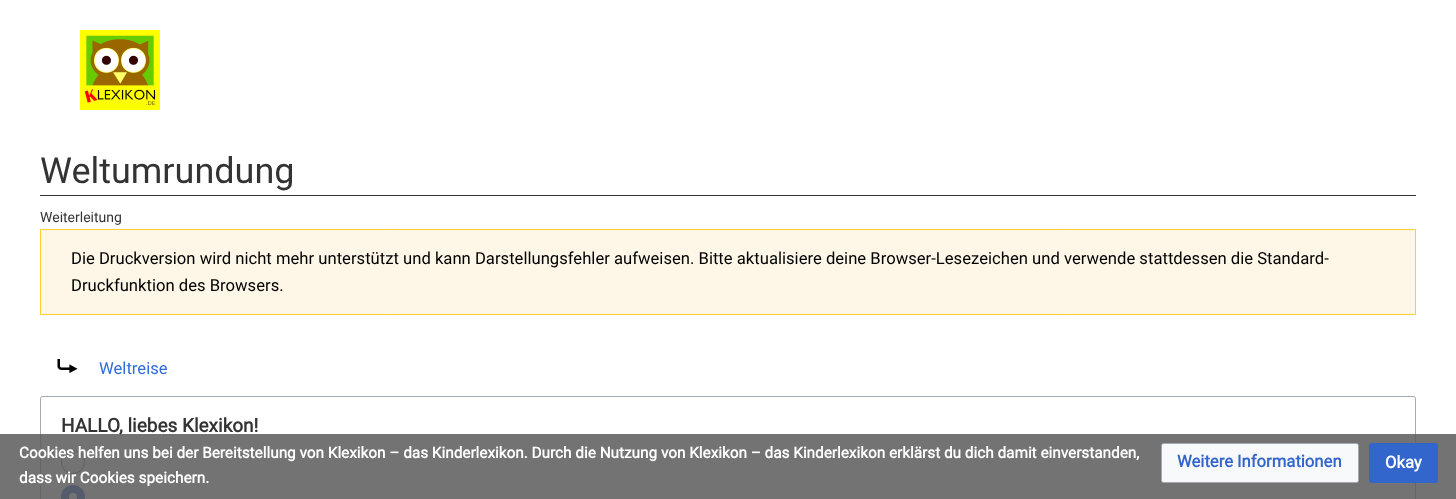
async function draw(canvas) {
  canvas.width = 1456
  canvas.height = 499
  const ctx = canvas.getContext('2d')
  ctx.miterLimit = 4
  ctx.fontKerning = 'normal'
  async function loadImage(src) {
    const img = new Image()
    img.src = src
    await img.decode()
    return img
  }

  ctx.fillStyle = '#fff'
  ctx.fillRect(0, 0, 1456, 499)
  ctx.drawImage(await loadImage('image0.png'), 80, 30, 80, 80)
  ctx.fillStyle = '#333'
  ctx.fillRect(40, 195, 1376, 1)
  ctx.font = '36px Roboto'
  ctx.fillText('Weltumrundung', 40, 183)
  ctx.font = '14px Roboto'
  ctx.fillText('Weiterleitung', 40, 222)
  ctx.fillStyle = '#fef6e7'
  ctx.beginPath()
  ctx.rect(40.5, 229.5, 1375, 85)
  ctx.fill()
  ctx.strokeStyle = '#fc3'
  ctx.stroke()
  ctx.font = '16.67px Roboto'
  ctx.fillStyle = '#000'
  ctx.fillText('Die Druckversion wird nicht mehr unterstützt und kann Darstellungsfehler aufweisen. Bitte aktualisiere deine Browser-Lesezeichen und verwende stattdessen die Standard-', 71, 264)
  ctx.fillText('Druckfunktion des Browsers.', 71, 291)
  ctx.drawImage(await loadImage('image1.png'), 57, 359, 21, 14)
  ctx.fillStyle = '#336bda'
  ctx.fillText('Weltreise', 99, 374)
  ctx.beginPath()
  ctx.roundRect(40.5, 396.5, 1375, 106, 2)
  ctx.strokeStyle = '#a2a9b1'
  ctx.stroke()
  ctx.font = 'bold 19px Roboto'
  ctx.fillStyle = '#333'
  ctx.fillText('HALLO, liebes Klexikon!', 61, 432)
  ctx.beginPath()
  ctx.arc(73, 462, 11.5, 0, 2 * Math.PI)
  ctx.strokeStyle = '#72777d'
  ctx.stroke()
  ctx.beginPath()
  ctx.arc(73, 497, 8, 0, 2 * Math.PI)
  ctx.strokeStyle = '#36c'
  ctx.lineWidth = 8
  ctx.stroke()
  ctx.fillStyle = '#5a5a5ad9'
  ctx.fillRect(0, 434, 1456, 65)
  ctx.font = 'bold 15.33px Roboto'
  ctx.fillStyle = '#fff'
  ctx.fillText('Cookies helfen uns bei der Bereitstellung von Klexikon – das Kinderlexikon. Durch die Nutzung von Klexikon – das Kinderlexikon erklärst du dich damit einverstanden,', 19, 458)
  ctx.fillText('dass wir Cookies speichern.', 19, 483)
  ctx.fillStyle = '#f8f9fa'
  ctx.beginPath()
  ctx.roundRect(1161.5, 443.5, 197, 39, 2)
  ctx.fill()
  ctx.strokeStyle = '#a2a9b1'
  ctx.lineWidth = 1
  ctx.stroke()
  ctx.font = 'bold 16.67px Roboto'
  ctx.fillStyle = '#36c'
  ctx.fillText('Weitere Informationen', 1177, 467)
  ctx.beginPath()
  ctx.roundRect(1369.5, 443.5, 68, 39, 2)
  ctx.fill()
  ctx.strokeStyle = '#36c'
  ctx.stroke()
  ctx.fillStyle = '#fff'
  ctx.fillText('Okay', 1385, 468)
}

draw(document.querySelector('canvas'))
